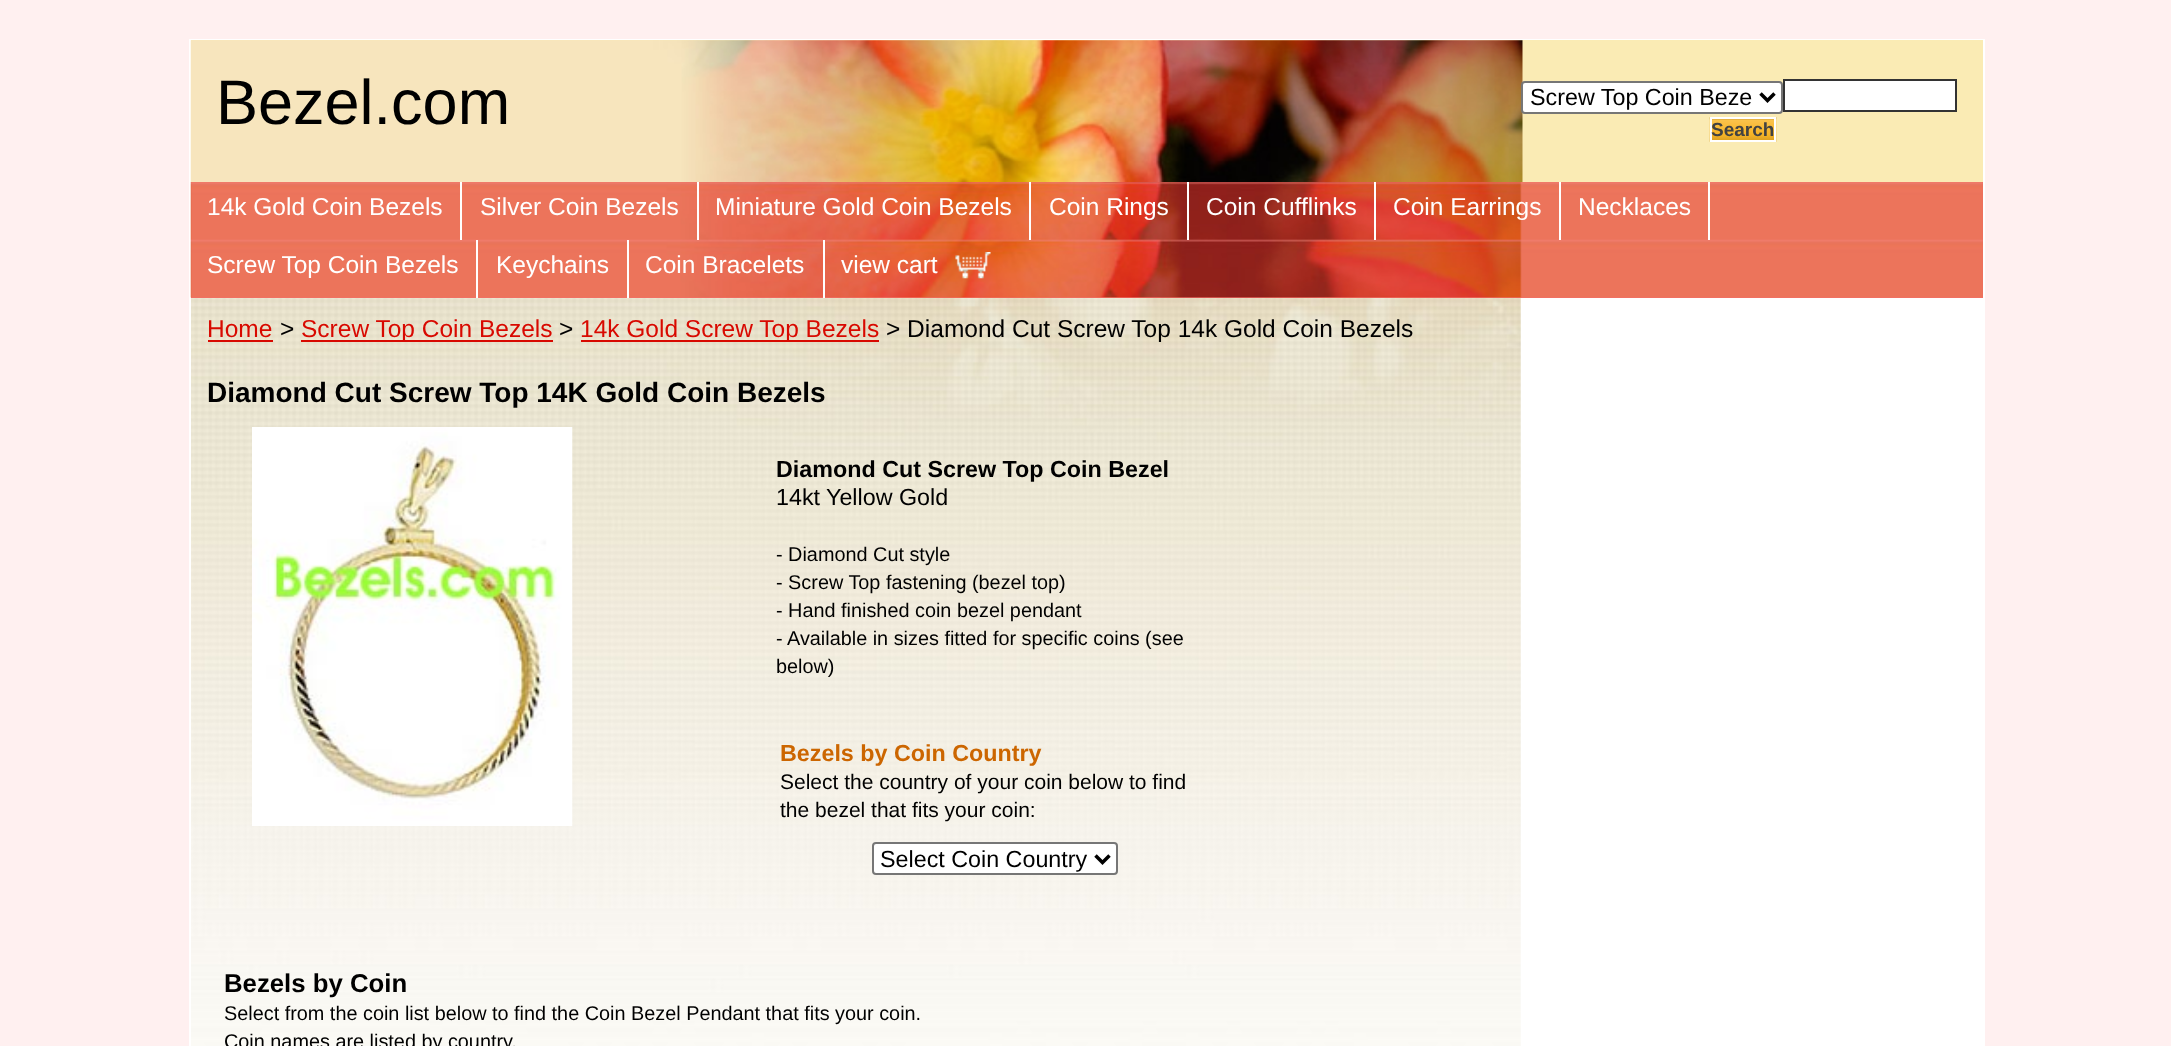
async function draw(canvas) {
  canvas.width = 2171
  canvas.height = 1046
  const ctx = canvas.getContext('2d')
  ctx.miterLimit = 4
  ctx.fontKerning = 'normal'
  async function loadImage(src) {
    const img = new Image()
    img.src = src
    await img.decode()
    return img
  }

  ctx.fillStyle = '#fff0f0'
  ctx.fillRect(0, 0, 2171, 1046)
  ctx.fillStyle = '#fff'
  ctx.fillRect(1520, 298, 463, 748)
  ctx.drawImage(await loadImage('image0.png'), 191, 298, 1330, 748)
  ctx.strokeStyle = '#fff'
  ctx.lineWidth = 2
  ctx.strokeRect(190, 40, 1794, 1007)
  ctx.fillStyle = '#faebb4'
  ctx.fillRect(191, 40, 1792, 142)
  ctx.drawImage(await loadImage('image1.png'), 190, 40, 1333, 142)
  ctx.font = '63px Liberation Sans'
  ctx.fillStyle = '#000'
  ctx.fillText('Bezel.com', 216, 124)
  ctx.fillStyle = '#fff'
  ctx.beginPath()
  ctx.roundRect(1522, 82, 260, 31, 3)
  ctx.fill()
  ctx.strokeStyle = '#767676'
  ctx.stroke()
  ctx.beginPath()
  ctx.moveTo(1760.5, 93.5)
  ctx.lineTo(1767.5, 100.5)
  ctx.lineTo(1774.5, 93.5)
  ctx.strokeStyle = '#000'
  ctx.lineWidth = 3.5
  ctx.stroke()
  ctx.font = '23.3px Liberation Sans'
  ctx.fillStyle = '#000'
  ctx.fillText('Screw Top Coin Beze', 1530, 105)
  ctx.fillStyle = '#fff'
  ctx.beginPath()
  ctx.rect(1784, 80, 172, 31)
  ctx.fill()
  ctx.strokeStyle = '#333'
  ctx.lineWidth = 2
  ctx.stroke()
  ctx.drawImage(await loadImage('image2.png'), 1709, 117, 68, 25)
  ctx.strokeStyle = '#fff'
  ctx.strokeRect(1711, 118, 64, 23)
  ctx.font = 'bold 19px Liberation Sans'
  ctx.fillStyle = '#424242'
  ctx.fillText('Search', 1711, 136)
  ctx.fillStyle = '#f46963'
  ctx.fillRect(191, 182, 1792, 116)
  ctx.drawImage(await loadImage('image3.png'), 190, 182, 1793, 116)
  ctx.font = '24.5px Liberation Sans'
  ctx.fillStyle = '#fff'
  ctx.fillText('14k Gold Coin Bezels', 207, 215)
  ctx.fillRect(460, 182, 2, 58)
  ctx.fillText('Silver Coin Bezels', 480, 215)
  ctx.fillRect(697, 182, 2, 58)
  ctx.fillText('Miniature Gold Coin Bezels', 715, 215)
  ctx.fillRect(1029, 182, 2, 58)
  ctx.fillText('Coin Rings', 1049, 215)
  ctx.fillRect(1187, 182, 2, 58)
  ctx.fillText('Coin Cufflinks', 1206, 215)
  ctx.fillRect(1374, 182, 2, 58)
  ctx.fillText('Coin Earrings', 1393, 215)
  ctx.fillRect(1559, 182, 2, 58)
  ctx.fillText('Necklaces', 1578, 215)
  ctx.fillRect(1708, 182, 2, 58)
  ctx.fillText('Screw Top Coin Bezels', 207, 273)
  ctx.fillRect(476, 240, 2, 58)
  ctx.fillText('Keychains', 496, 273)
  ctx.fillRect(627, 240, 2, 58)
  ctx.fillText('Coin Bracelets', 645, 273)
  ctx.fillRect(823, 240, 2, 58)
  ctx.fillText('view cart', 841, 273)
  ctx.drawImage(await loadImage('image4.png'), 955, 252, 36, 27)
  ctx.fillStyle = '#d80900'
  ctx.fillText('Home', 207, 337)
  ctx.fillRect(208, 340, 65, 2)
  ctx.fillStyle = '#000'
  ctx.fillText('>', 280, 337)
  ctx.fillStyle = '#d80900'
  ctx.fillRect(301, 340, 252, 2)
  ctx.fillText('Screw Top Coin Bezels', 301, 337)
  ctx.fillStyle = '#000'
  ctx.fillText('>', 559, 337)
  ctx.fillStyle = '#d80900'
  ctx.fillRect(581, 340, 298, 2)
  ctx.fillText('14k Gold Screw Top Bezels', 580, 337)
  ctx.fillStyle = '#000'
  ctx.fillText('> Diamond Cut Screw Top 14k Gold Coin Bezels', 886, 337)
  ctx.font = 'bold 28px Liberation Sans'
  ctx.fillText('Diamond Cut Screw Top 14K Gold Coin Bezels', 207, 402)
  ctx.drawImage(await loadImage('image5.png'), 252, 427, 321, 399)
  ctx.font = 'bold 23.3px Liberation Sans'
  ctx.fillText('Diamond Cut Screw Top Coin Bezel', 776, 477)
  ctx.font = '23.3px Liberation Sans'
  ctx.fillText('14kt', 776, 505)
  ctx.fillText('Yellow Gold', 826, 505)
  ctx.font = '19.85px Liberation Sans'
  ctx.fillText('- Diamond Cut style', 776, 561)
  ctx.fillText('- Screw Top fastening (bezel top)', 776, 589)
  ctx.fillText('- Hand finished coin bezel pendant', 776, 617)
  ctx.fillText('- Available in sizes fitted for specific coins (see', 776, 645)
  ctx.fillText('below)', 776, 673)
  ctx.font = 'bold 23.3px Liberation Sans'
  ctx.fillStyle = '#c60'
  ctx.fillText('Bezels by Coin Country', 780, 761)
  ctx.font = '21px Liberation Sans'
  ctx.fillStyle = '#000'
  ctx.fillText('Select the country of your coin below to find', 780, 789)
  ctx.fillText('the bezel that fits your coin:', 780, 817)
  ctx.fillStyle = '#fff'
  ctx.beginPath()
  ctx.roundRect(873, 843, 244, 31, 3)
  ctx.fill()
  ctx.strokeStyle = '#767676'
  ctx.stroke()
  ctx.beginPath()
  ctx.moveTo(1095.5, 855.5)
  ctx.lineTo(1102.5, 862.5)
  ctx.lineTo(1109.5, 855.5)
  ctx.strokeStyle = '#000'
  ctx.lineWidth = 3.5
  ctx.stroke()
  ctx.font = '23.3px Liberation Sans'
  ctx.fillStyle = '#000'
  ctx.fillText('Select Coin Country', 880, 867)
  ctx.font = 'bold 25.75px Liberation Sans'
  ctx.fillText('Bezels by Coin', 224, 992)
  ctx.font = '19.85px Liberation Sans'
  ctx.fillText('Select from the coin list below to find the Coin Bezel Pendant that fits your coin.', 224, 1020)
  ctx.fillText('Coin names are listed by country.', 224, 1048)
}

draw(document.querySelector('canvas'))
